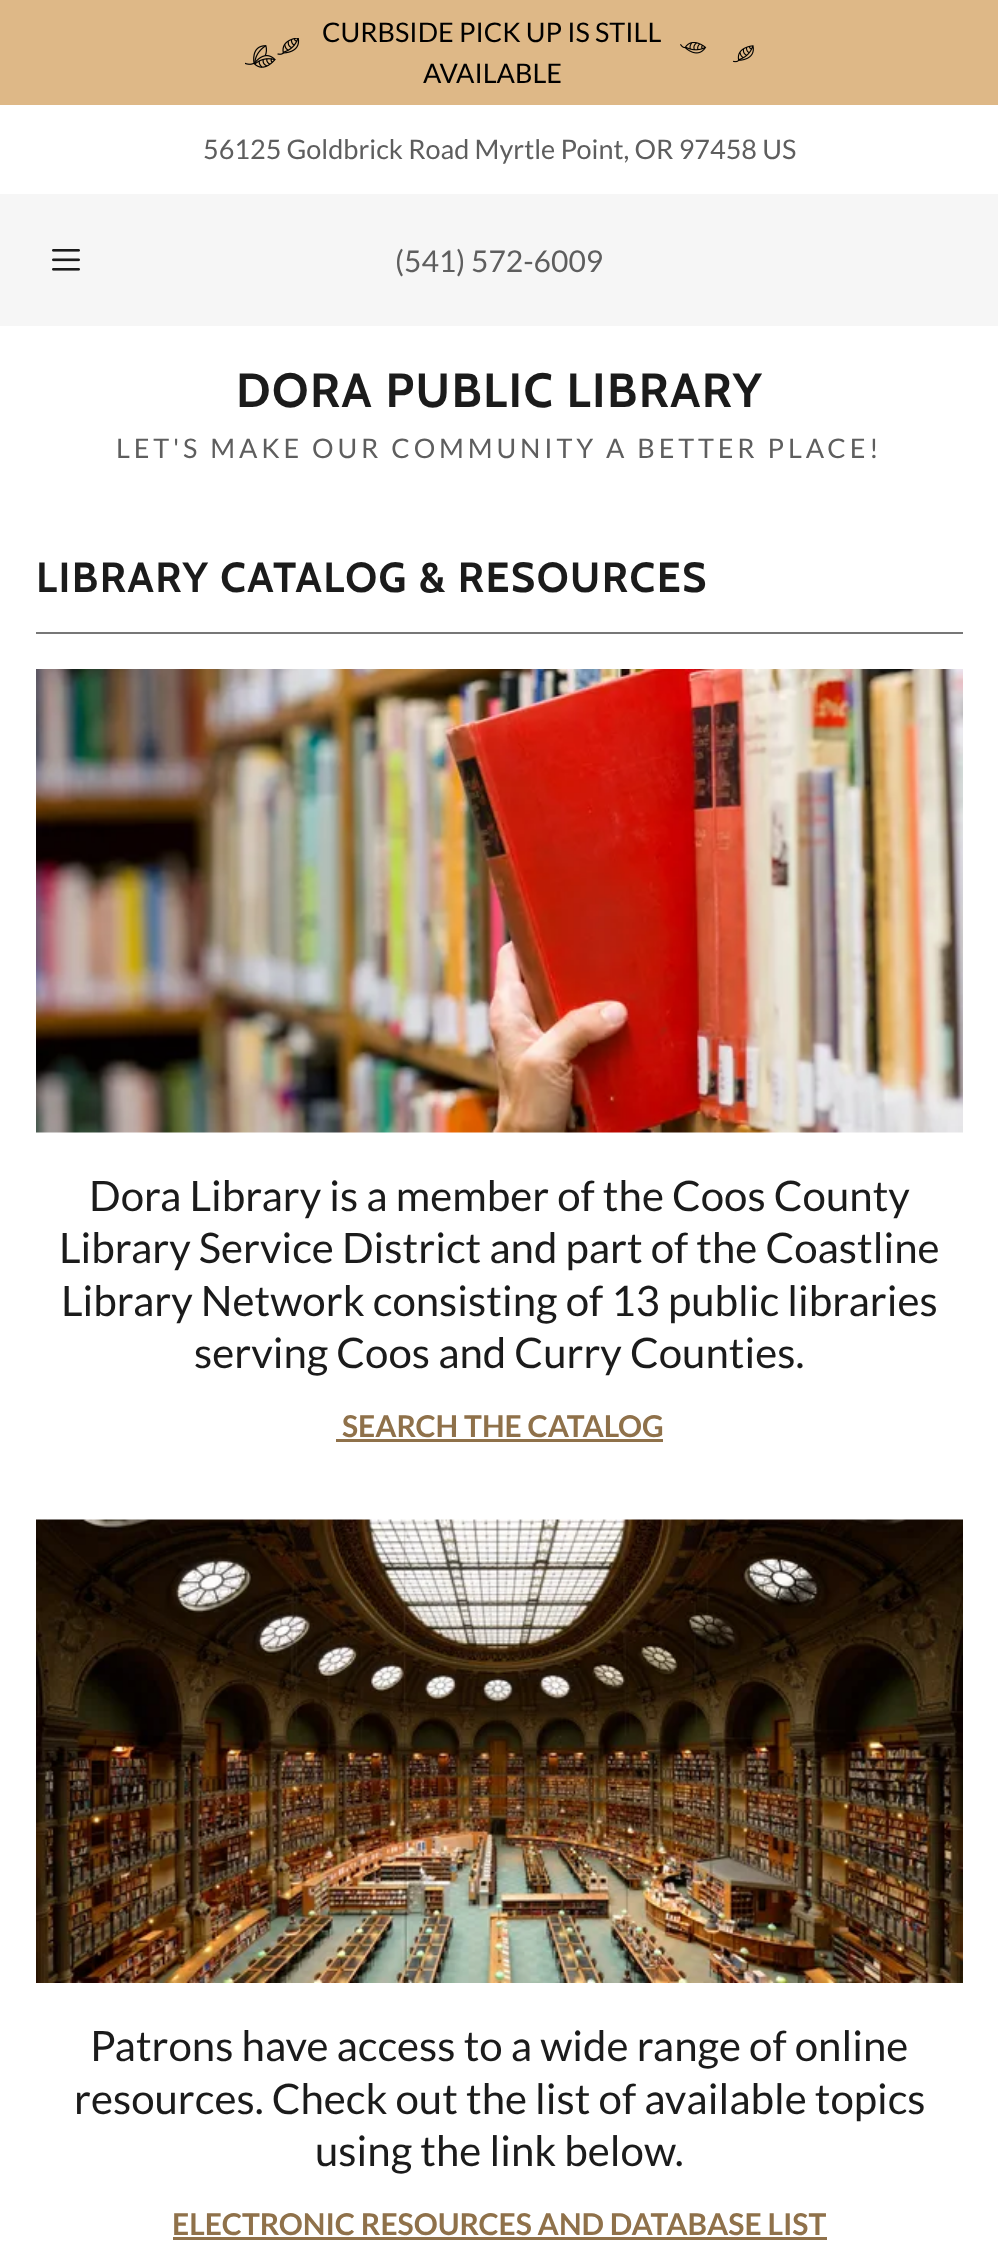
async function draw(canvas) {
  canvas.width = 998
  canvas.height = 2259
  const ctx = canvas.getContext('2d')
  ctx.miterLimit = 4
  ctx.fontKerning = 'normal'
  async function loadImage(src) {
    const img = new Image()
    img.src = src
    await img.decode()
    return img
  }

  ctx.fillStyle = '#fff'
  ctx.fillRect(0, 0, 998, 2259)
  ctx.fillStyle = '#deb887'
  ctx.fillRect(0, 0, 998, 105)
  ctx.drawImage(await loadImage('image0.png'), 245, 38, 55, 30)
  ctx.font = '27px Lato'
  ctx.fillStyle = '#000'
  ctx.fillText('CURBSIDE PICK UP IS STILL', 322, 42)
  ctx.fillText('AVAILABLE', 423, 83)
  ctx.drawImage(await loadImage('image1.png'), 680, 42, 74, 21)
  ctx.fillStyle = '#5e5e5e'
  ctx.fillText('56125 Goldbrick Road Myrtle Point, OR 97458 US', 203, 159)
  ctx.fillStyle = '#f6f6f6'
  ctx.fillRect(0, 194, 998, 132)
  ctx.drawImage(await loadImage('image2.png'), 52, 249, 28, 22)
  ctx.font = '30px Lato'
  ctx.fillStyle = '#5e5e5e'
  ctx.fillText('(541) 572-6009', 395, 272)
  ctx.letterSpacing = '1.5px'
  ctx.font = 'bold 48px Cabin'
  ctx.fillStyle = '#1b1b1b'
  ctx.fillText('DORA PUBLIC LIBRARY', 236, 407)
  ctx.letterSpacing = '3.85px'
  ctx.font = '27px Lato'
  ctx.fillStyle = '#5e5e5e'
  ctx.fillText('LET\'S MAKE OUR COMMUNITY A BETTER PLACE!', 116, 458)
  ctx.letterSpacing = '1.5px'
  ctx.font = 'bold 42px Cabin'
  ctx.fillStyle = '#1b1b1b'
  ctx.fillText('LIBRARY CATALOG & RESOURCES', 36, 592)
  ctx.fillStyle = '#777'
  ctx.fillRect(36, 632, 927, 2)
  ctx.drawImage(await loadImage('image3.png'), 36, 669, 927, 464)
  ctx.letterSpacing = '0px'
  ctx.font = '42px Lato'
  ctx.fillStyle = '#1b1b1b'
  ctx.fillText('Dora Library is a member of the Coos County', 89, 1211)
  ctx.fillText('Library Service District and part of the Coastline', 59, 1263)
  ctx.fillText('Library Network consisting of 13 public libraries', 61, 1316)
  ctx.fillText('serving Coos and Curry Counties.', 194, 1368)
  ctx.font = 'bold 30px Lato'
  ctx.fillStyle = '#8f714a'
  ctx.fillText('SEARCH THE CATALOG', 342, 1437)
  ctx.fillRect(336, 1439, 327, 3)
  ctx.drawImage(await loadImage('image4.png'), 36, 1519, 927, 464)
  ctx.font = '42px Lato'
  ctx.fillStyle = '#1b1b1b'
  ctx.fillText('Patrons have access to a wide range of online', 90, 2061)
  ctx.fillText('resources. Check out the list of available topics', 74, 2114)
  ctx.fillText('using the link below.', 315, 2166)
  ctx.font = 'bold 30px Lato'
  ctx.fillStyle = '#8f714a'
  ctx.fillText('ELECTRONIC RESOURCES AND DATABASE LIST', 172, 2235)
  ctx.fillRect(173, 2237, 654, 3)
}

draw(document.querySelector('canvas'))
